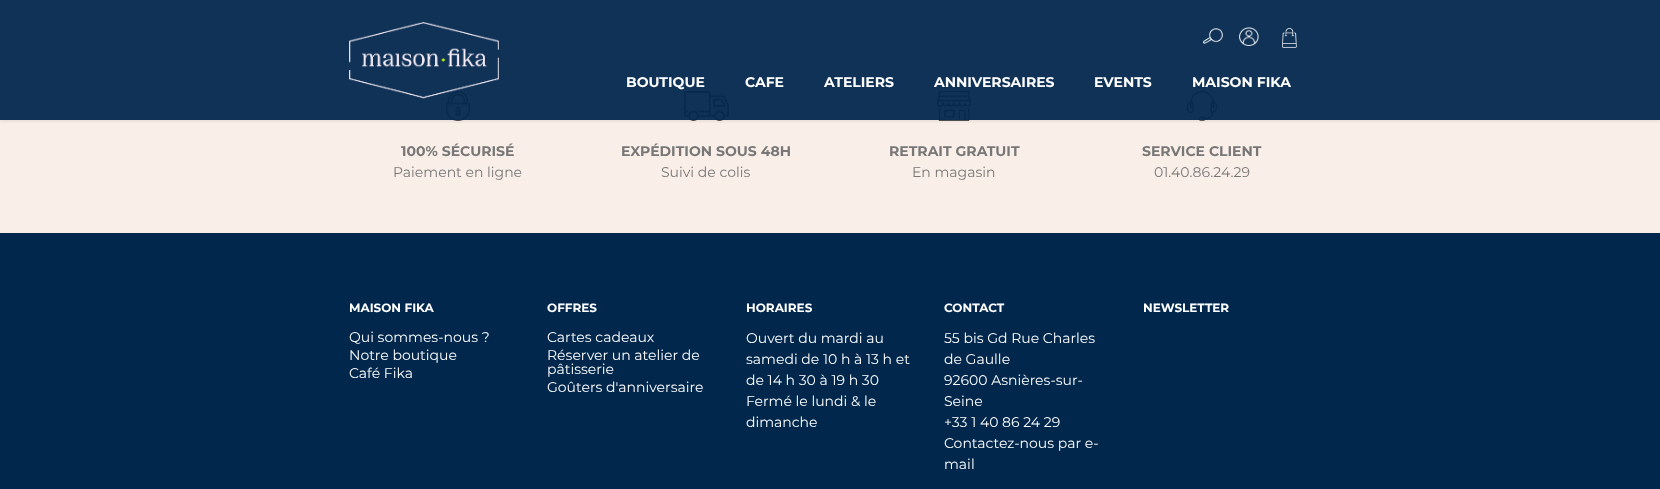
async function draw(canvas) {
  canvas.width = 1660
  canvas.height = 489
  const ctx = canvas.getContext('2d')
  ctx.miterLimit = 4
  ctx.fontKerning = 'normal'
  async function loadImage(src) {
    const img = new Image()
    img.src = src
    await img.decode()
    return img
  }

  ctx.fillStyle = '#0f3256'
  ctx.fillRect(0, 0, 1660, 489)
  ctx.fillStyle = '#faefe8'
  ctx.fillRect(0, 120, 1660, 113)
  ctx.drawImage(await loadImage('image4.png'), 446, 91, 24, 30)
  ctx.drawImage(await loadImage('image5.png'), 684, 91, 45, 30)
  ctx.drawImage(await loadImage('image6.png'), 937, 91, 34, 30)
  ctx.drawImage(await loadImage('image7.png'), 1187, 91, 30, 30)
  ctx.save()
  ctx.beginPath()
  ctx.rect(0, 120, 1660, 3)
  ctx.clip()
  ctx.fillStyle = '#0000001a'
  ctx.filter = 'blur(2px)'
  ctx.beginPath()
  ctx.rect(0, 1, 1660, 120)
  ctx.fill()
  ctx.filter = 'none'
  ctx.restore()
  ctx.drawImage(await loadImage('image0.png'), 349, 22, 150, 77)
  ctx.drawImage(await loadImage('image1.png'), 1203, 28, 20, 16)
  ctx.drawImage(await loadImage('image2.png'), 1239, 27, 20, 19)
  ctx.drawImage(await loadImage('image3.png'), 1282, 28, 15, 20)
  ctx.font = 'bold 14px Montserrat'
  ctx.fillStyle = '#fff'
  ctx.fillText('BOUTIQUE', 626, 87)
  ctx.fillText('CAFE', 745, 87)
  ctx.fillText('ATELIERS', 824, 87)
  ctx.fillText('ANNIVERSAIRES', 934, 87)
  ctx.fillText('EVENTS', 1094, 87)
  ctx.fillText('MAISON FIKA', 1192, 87)
  ctx.fillStyle = '#777'
  ctx.fillText('100% SÉCURISÉ', 401, 156)
  ctx.font = '14px Montserrat'
  ctx.fillText('Paiement en ligne', 393, 177)
  ctx.font = 'bold 14px Montserrat'
  ctx.fillText('EXPÉDITION SOUS 48H', 621, 156)
  ctx.font = '14px Montserrat'
  ctx.fillText('Suivi de colis', 661, 177)
  ctx.font = 'bold 14px Montserrat'
  ctx.fillText('RETRAIT GRATUIT', 889, 156)
  ctx.font = '14px Montserrat'
  ctx.fillText('En magasin', 912, 177)
  ctx.font = 'bold 14px Montserrat'
  ctx.fillText('SERVICE CLIENT', 1142, 156)
  ctx.font = '14px Montserrat'
  ctx.fillText('01.40.86.24.29', 1154, 177)
  ctx.fillStyle = '#02274d'
  ctx.fillRect(0, 233, 1660, 256)
  ctx.font = 'bold 12px Montserrat'
  ctx.fillStyle = '#fff'
  ctx.fillText('MAISON FIKA', 349, 312)
  ctx.font = '14px Montserrat'
  ctx.fillText('Qui sommes-nous ?', 349, 342)
  ctx.fillText('Notre boutique', 349, 360)
  ctx.fillText('Café Fika', 349, 378)
  ctx.font = 'bold 12px Montserrat'
  ctx.fillText('OFFRES', 547, 312)
  ctx.font = '14px Montserrat'
  ctx.fillText('Cartes cadeaux', 547, 342)
  ctx.fillText('Réserver un atelier de', 547, 360)
  ctx.fillText('pâtisserie', 547, 374)
  ctx.fillText('Goûters d\'anniversaire', 547, 392)
  ctx.font = 'bold 12px Montserrat'
  ctx.fillText('HORAIRES', 746, 312)
  ctx.font = '14px Montserrat'
  ctx.fillText('Ouvert du mardi au', 746, 343)
  ctx.fillText('samedi de 10 h à 13 h et', 746, 364)
  ctx.fillText('de 14 h 30 à 19 h 30', 746, 385)
  ctx.fillText('Fermé le lundi & le', 746, 406)
  ctx.fillText('dimanche', 746, 427)
  ctx.font = 'bold 12px Montserrat'
  ctx.fillText('CONTACT', 944, 312)
  ctx.font = '14px Montserrat'
  ctx.fillText('55 bis Gd Rue Charles', 944, 343)
  ctx.fillText('de Gaulle', 944, 364)
  ctx.fillText('92600 Asnières-sur-', 944, 385)
  ctx.fillText('Seine', 944, 406)
  ctx.fillText('+33 1 40 86 24 29', 944, 427)
  ctx.fillText('Contactez-nous par e-', 944, 448)
  ctx.fillText('mail', 944, 469)
  ctx.font = 'bold 12px Montserrat'
  ctx.fillText('NEWSLETTER', 1143, 312)
}

draw(document.querySelector('canvas'))
